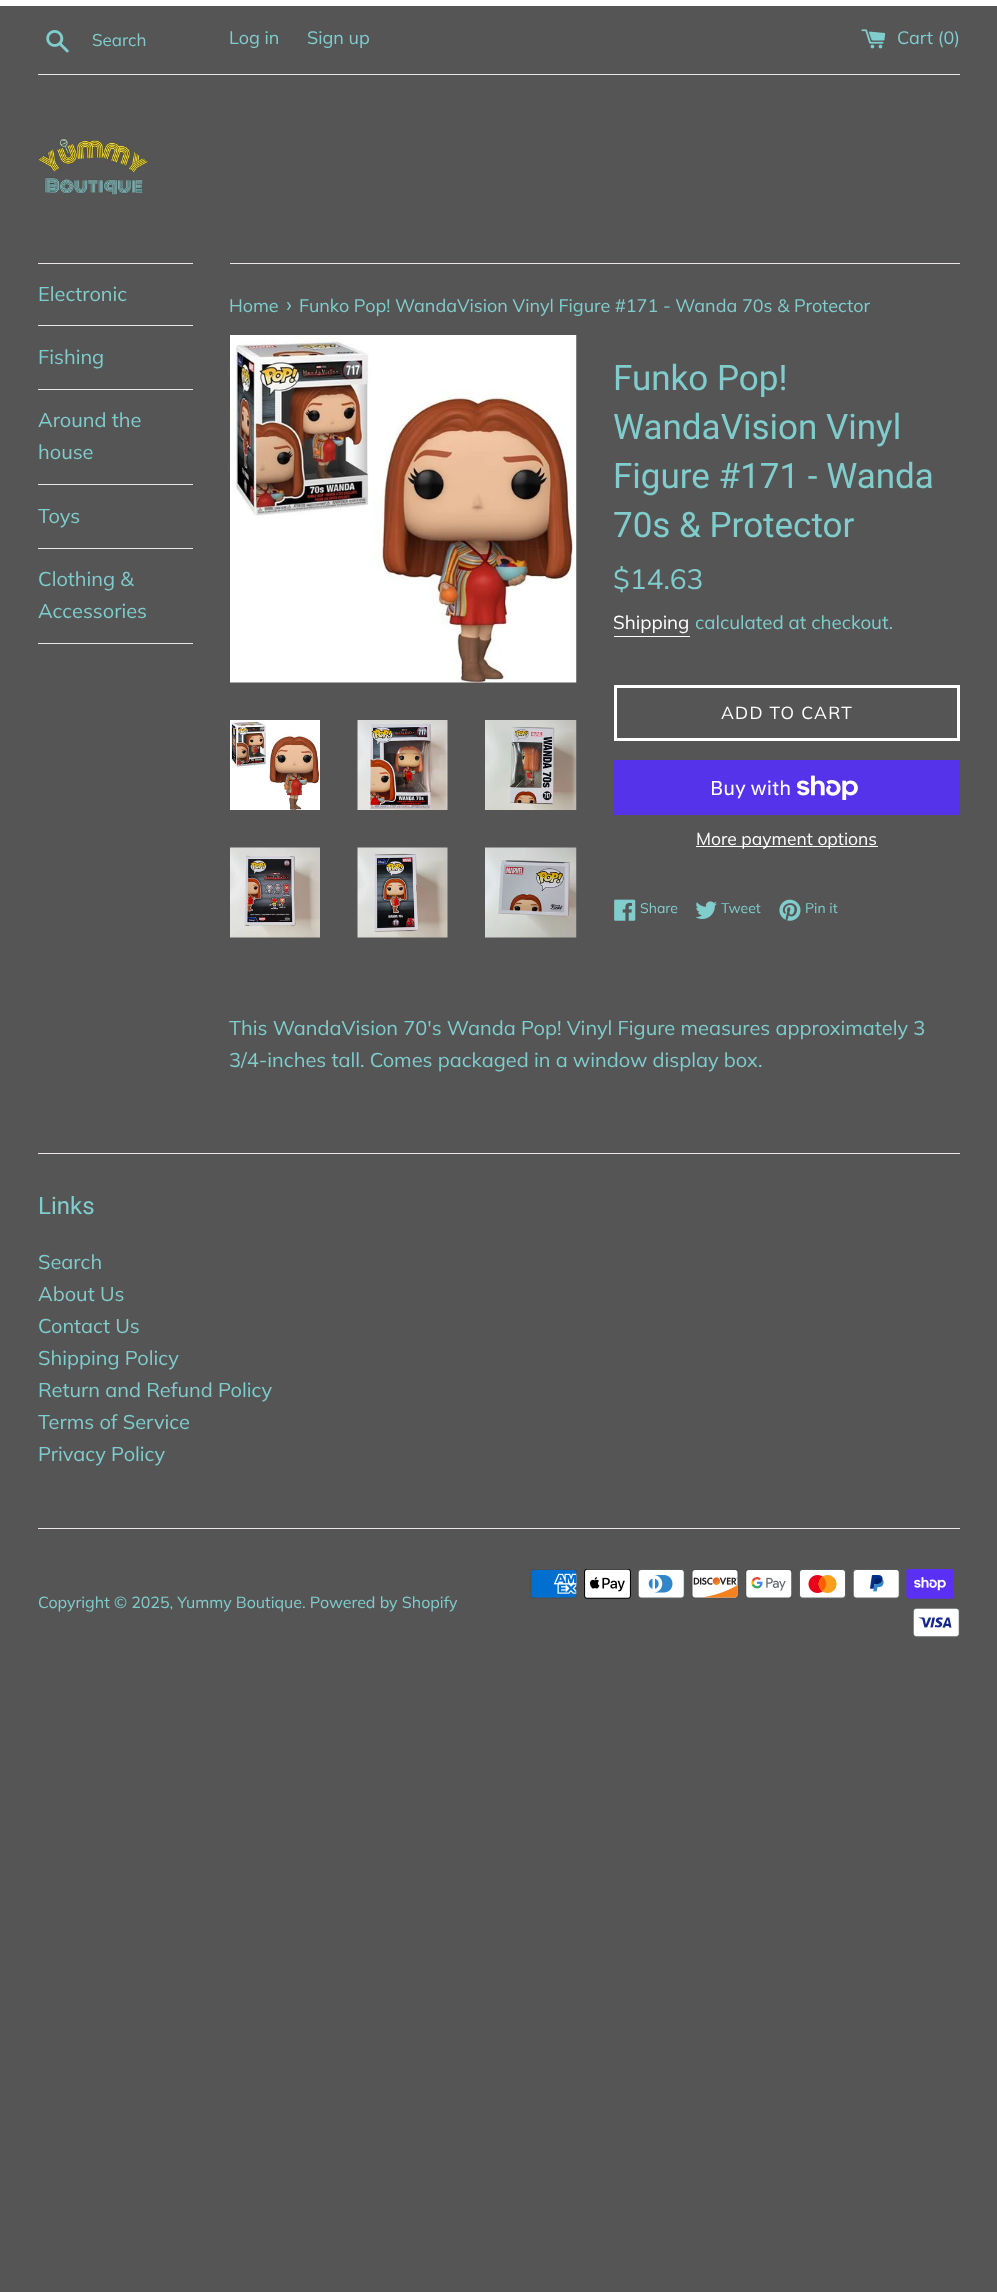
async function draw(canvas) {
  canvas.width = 997
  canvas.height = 2292
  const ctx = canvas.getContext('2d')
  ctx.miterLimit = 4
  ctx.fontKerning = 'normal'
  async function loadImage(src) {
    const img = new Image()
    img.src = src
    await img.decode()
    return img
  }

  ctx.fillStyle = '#555'
  ctx.fillRect(0, 0, 997, 2292)
  ctx.fillStyle = '#fff'
  ctx.fillRect(0, 0, 997, 6)
  ctx.drawImage(await loadImage('image0.png'), 46, 30, 23, 23)
  ctx.font = '17px Muli'
  ctx.fillStyle = '#81cdcd'
  ctx.fillText('Search', 92, 46)
  ctx.font = '18px Muli'
  ctx.fillText('Log in', 229, 44)
  ctx.fillText('Sign up', 307, 44)
  ctx.drawImage(await loadImage('image1.png'), 861, 29, 25, 20)
  ctx.fillText('Cart (0)', 897, 44)
  ctx.fillStyle = '#ede8e7'
  ctx.fillRect(38, 74, 922, 1)
  ctx.drawImage(await loadImage('image2.png'), 37, 138, 111, 60)
  ctx.fillRect(38, 263, 155, 1)
  ctx.fillRect(38, 325, 155, 1)
  ctx.font = '20px Muli'
  ctx.fillStyle = '#81cdcd'
  ctx.fillText('Electronic', 38, 301)
  ctx.fillStyle = '#ede8e7'
  ctx.fillRect(38, 389, 155, 1)
  ctx.fillStyle = '#81cdcd'
  ctx.fillText('Fishing', 38, 364)
  ctx.fillStyle = '#ede8e7'
  ctx.fillRect(38, 484, 155, 1)
  ctx.fillStyle = '#81cdcd'
  ctx.fillText('Around the', 38, 427)
  ctx.fillText('house', 38, 459)
  ctx.fillStyle = '#ede8e7'
  ctx.fillRect(38, 548, 155, 1)
  ctx.fillStyle = '#81cdcd'
  ctx.fillText('Toys', 38, 523)
  ctx.fillStyle = '#ede8e7'
  ctx.fillRect(38, 643, 155, 1)
  ctx.fillStyle = '#81cdcd'
  ctx.fillText('Clothing &', 38, 586)
  ctx.fillText('Accessories', 38, 618)
  ctx.fillStyle = '#ede8e7'
  ctx.fillRect(230, 263, 730, 1)
  ctx.font = '18px Muli'
  ctx.fillStyle = '#81cdcd'
  ctx.fillText('Home', 229, 312)
  ctx.font = '22px Muli'
  ctx.fillText('›', 286, 312)
  ctx.font = '18px Muli'
  ctx.fillText('Funko Pop! WandaVision Vinyl Figure #171 - Wanda 70s & Protector', 299, 312)
  ctx.drawImage(await loadImage('image3.png'), 230, 335, 347, 348)
  ctx.drawImage(await loadImage('image4.png'), 230, 720, 90, 90)
  ctx.drawImage(await loadImage('image5.png'), 357, 720, 91, 90)
  ctx.drawImage(await loadImage('image6.png'), 485, 720, 92, 90)
  ctx.drawImage(await loadImage('image7.png'), 230, 847, 90, 91)
  ctx.drawImage(await loadImage('image8.png'), 357, 847, 91, 91)
  ctx.drawImage(await loadImage('image9.png'), 485, 847, 92, 91)
  ctx.font = '35px Roboto'
  ctx.fillText('Funko Pop!', 613, 390)
  ctx.fillText('WandaVision Vinyl', 613, 439)
  ctx.fillText('Figure #171 - Wanda', 613, 488)
  ctx.fillText('70s & Protector', 613, 537)
  ctx.font = '28px Muli'
  ctx.fillText('$14.63', 613, 589)
  ctx.font = '18.75px Muli'
  ctx.fillStyle = '#fff'
  ctx.fillText('Shipping', 613, 629)
  ctx.fillRect(614, 636, 76, 1)
  ctx.fillStyle = '#81cdcd'
  ctx.fillText('calculated at checkout.', 695, 629)
  ctx.strokeStyle = '#fff'
  ctx.lineWidth = 3
  ctx.strokeRect(615.5, 686.5, 343, 53)
  ctx.letterSpacing = '1.25px'
  ctx.font = '17.5px Muli'
  ctx.fillStyle = '#fff'
  ctx.fillText('ADD TO CART', 721, 719)
  ctx.fillStyle = '#5433eb'
  ctx.fillRect(614, 760, 346, 55)
  ctx.letterSpacing = '0px'
  ctx.font = '20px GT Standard'
  ctx.fillStyle = '#fff'
  ctx.fillText('Buy with', 710, 795)
  ctx.drawImage(await loadImage('image10.png'), 796, 775, 62, 25)
  ctx.fillRect(696, 846, 182, 1)
  ctx.font = '17.5px Muli'
  ctx.fillText('More payment options', 696, 845)
  ctx.drawImage(await loadImage('image11.png'), 614, 899, 22, 22)
  ctx.font = '14px Muli'
  ctx.fillStyle = '#81cdcd'
  ctx.fillText('Share', 640, 913)
  ctx.drawImage(await loadImage('image12.png'), 695, 901, 22, 18)
  ctx.fillText('Tweet', 721, 913)
  ctx.drawImage(await loadImage('image13.png'), 779, 899, 22, 22)
  ctx.fillText('Pin it', 805, 913)
  ctx.font = '20px Muli'
  ctx.fillText('This WandaVision 70\'s Wanda Pop! Vinyl Figure measures approximately 3', 229, 1035)
  ctx.fillText('3/4-inches tall. Comes packaged in a window display box.', 229, 1067)
  ctx.fillStyle = '#ede8e7'
  ctx.fillRect(38, 1153, 922, 1)
  ctx.font = '24px Roboto'
  ctx.fillStyle = '#81cdcd'
  ctx.fillText('Links', 38, 1214)
  ctx.font = '20px Muli'
  ctx.fillText('Search', 38, 1269)
  ctx.fillText('About Us', 38, 1301)
  ctx.fillText('Contact Us', 38, 1333)
  ctx.fillText('Shipping Policy', 38, 1365)
  ctx.fillText('Return and Refund Policy', 38, 1397)
  ctx.fillText('Terms of Service', 38, 1429)
  ctx.fillText('Privacy Policy', 38, 1461)
  ctx.fillStyle = '#ede8e7'
  ctx.fillRect(38, 1528, 922, 1)
  ctx.font = '16px Muli'
  ctx.fillStyle = '#81cdcd'
  ctx.fillText('Copyright © 2025, Yummy Boutique. Powered by Shopify', 38, 1608)
  ctx.drawImage(await loadImage('image14.png'), 530, 1569, 47, 30)
  ctx.drawImage(await loadImage('image15.png'), 584, 1569, 47, 30)
  ctx.drawImage(await loadImage('image16.png'), 638, 1569, 47, 30)
  ctx.drawImage(await loadImage('image17.png'), 691, 1569, 48, 30)
  ctx.drawImage(await loadImage('image18.png'), 745, 1569, 47, 30)
  ctx.drawImage(await loadImage('image19.png'), 799, 1569, 47, 30)
  ctx.drawImage(await loadImage('image20.png'), 853, 1569, 47, 30)
  ctx.drawImage(await loadImage('image21.png'), 906, 1569, 48, 30)
  ctx.drawImage(await loadImage('image22.png'), 913, 1608, 47, 30)
}

draw(document.querySelector('canvas'))
